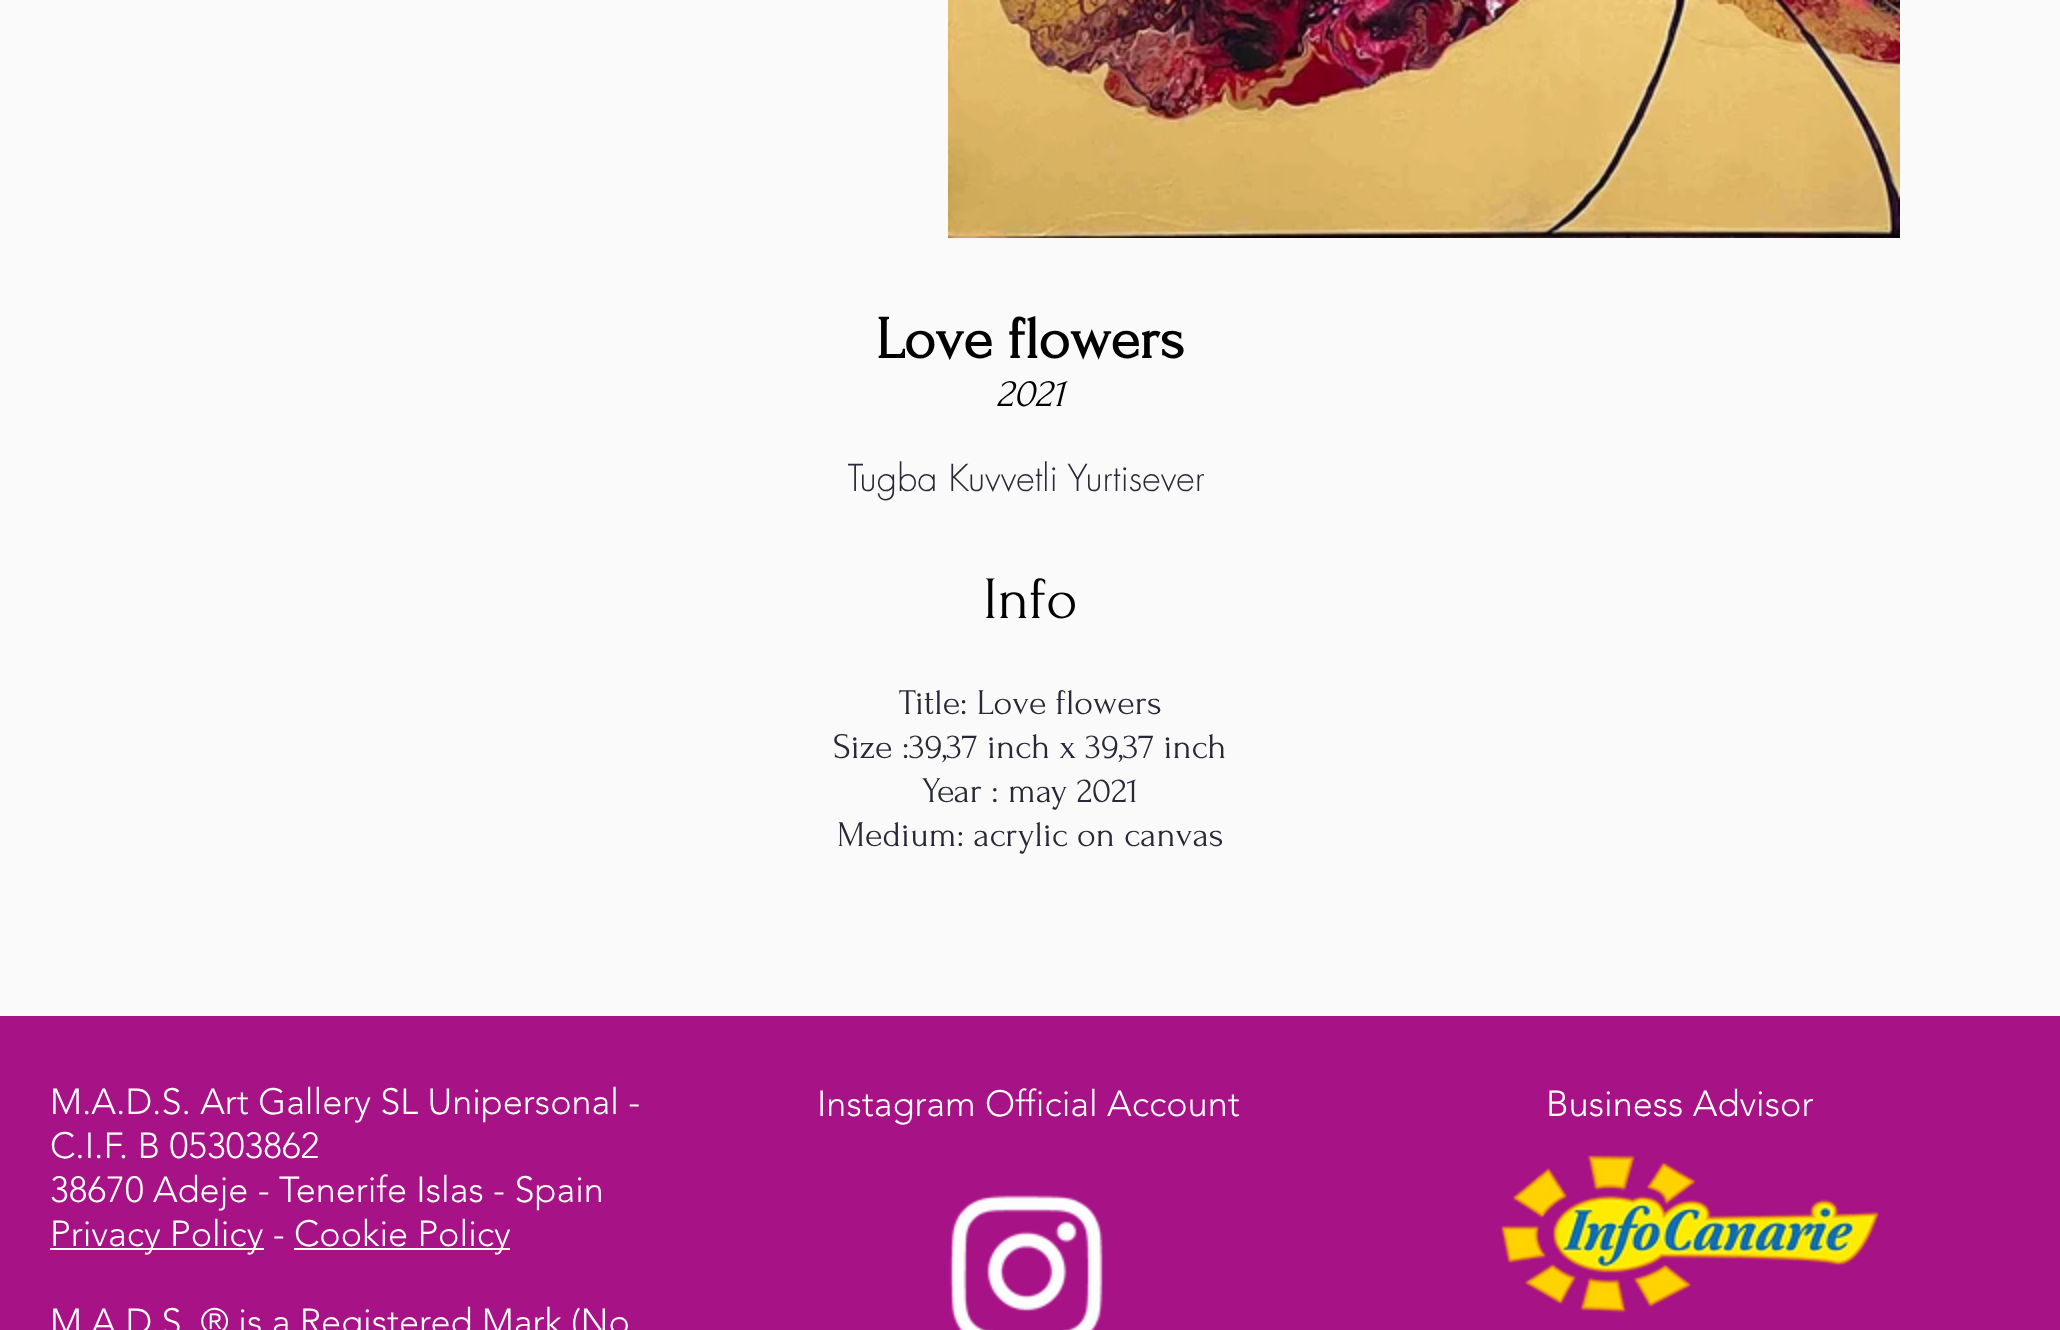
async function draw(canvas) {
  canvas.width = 2060
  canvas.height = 1330
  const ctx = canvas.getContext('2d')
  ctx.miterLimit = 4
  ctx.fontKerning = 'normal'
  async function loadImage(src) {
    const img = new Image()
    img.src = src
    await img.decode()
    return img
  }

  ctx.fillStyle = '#fafafa'
  ctx.fillRect(0, 0, 2060, 1330)
  ctx.drawImage(await loadImage('image0.png'), 948, 0, 952, 238)
  ctx.font = 'bold 60px Forum'
  ctx.fillStyle = '#000'
  ctx.fillText('Love flowers', 876, 358)
  ctx.font = 'italic 40px Forum'
  ctx.fillText('2021', 996, 406)
  ctx.save()
  ctx.beginPath()
  ctx.rect(848, 456, 356, 46)
  ctx.clip()
  ctx.font = '300 36px futura'
  ctx.fillStyle = '#282936'
  ctx.fillText('Tugba Kuvvetli Yurtisever', 847, 491)
  ctx.restore()
  ctx.font = '60px Forum'
  ctx.fillText('Info', 983, 618)
  ctx.font = '36px Forum'
  ctx.fillStyle = '#282936'
  ctx.fillText('Title: Love flowers', 899, 714)
  ctx.fillText('Size :39,37 inch x 39,37 inch', 833, 758)
  ctx.fillText('Year : may 2021', 922, 802)
  ctx.fillText('Medium: acrylic on canvas', 837, 846)
  ctx.fillStyle = '#a71286'
  ctx.fillRect(0, 1016, 2060, 314)
  ctx.font = '300 36px "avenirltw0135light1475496"'
  ctx.fillStyle = '#fff'
  ctx.fillText('M.A.D.S. Art Gallery SL Unipersonal -', 50, 1114)
  ctx.fillText('C.I.F. B 05303862', 50, 1158)
  ctx.fillText('38670 Adeje - Tenerife Islas - Spain', 50, 1202)
  ctx.fillRect(50, 1248, 214, 2)
  ctx.fillText('Privacy Policy -', 50, 1246)
  ctx.fillRect(294, 1248, 216, 2)
  ctx.fillText('Cookie Policy', 294, 1246)
  ctx.fillText('M.A.D.S. ® is a Registered Mark (No', 50, 1334)
  ctx.fillText('Instagram Official Account', 817, 1116)
  ctx.drawImage(await loadImage('image1.png'), 949, 1195, 154, 135)
  ctx.fillText('Business Advisor', 1546, 1116)
  ctx.drawImage(await loadImage('image2.png'), 1501, 1155, 378, 158)
}

draw(document.querySelector('canvas'))
